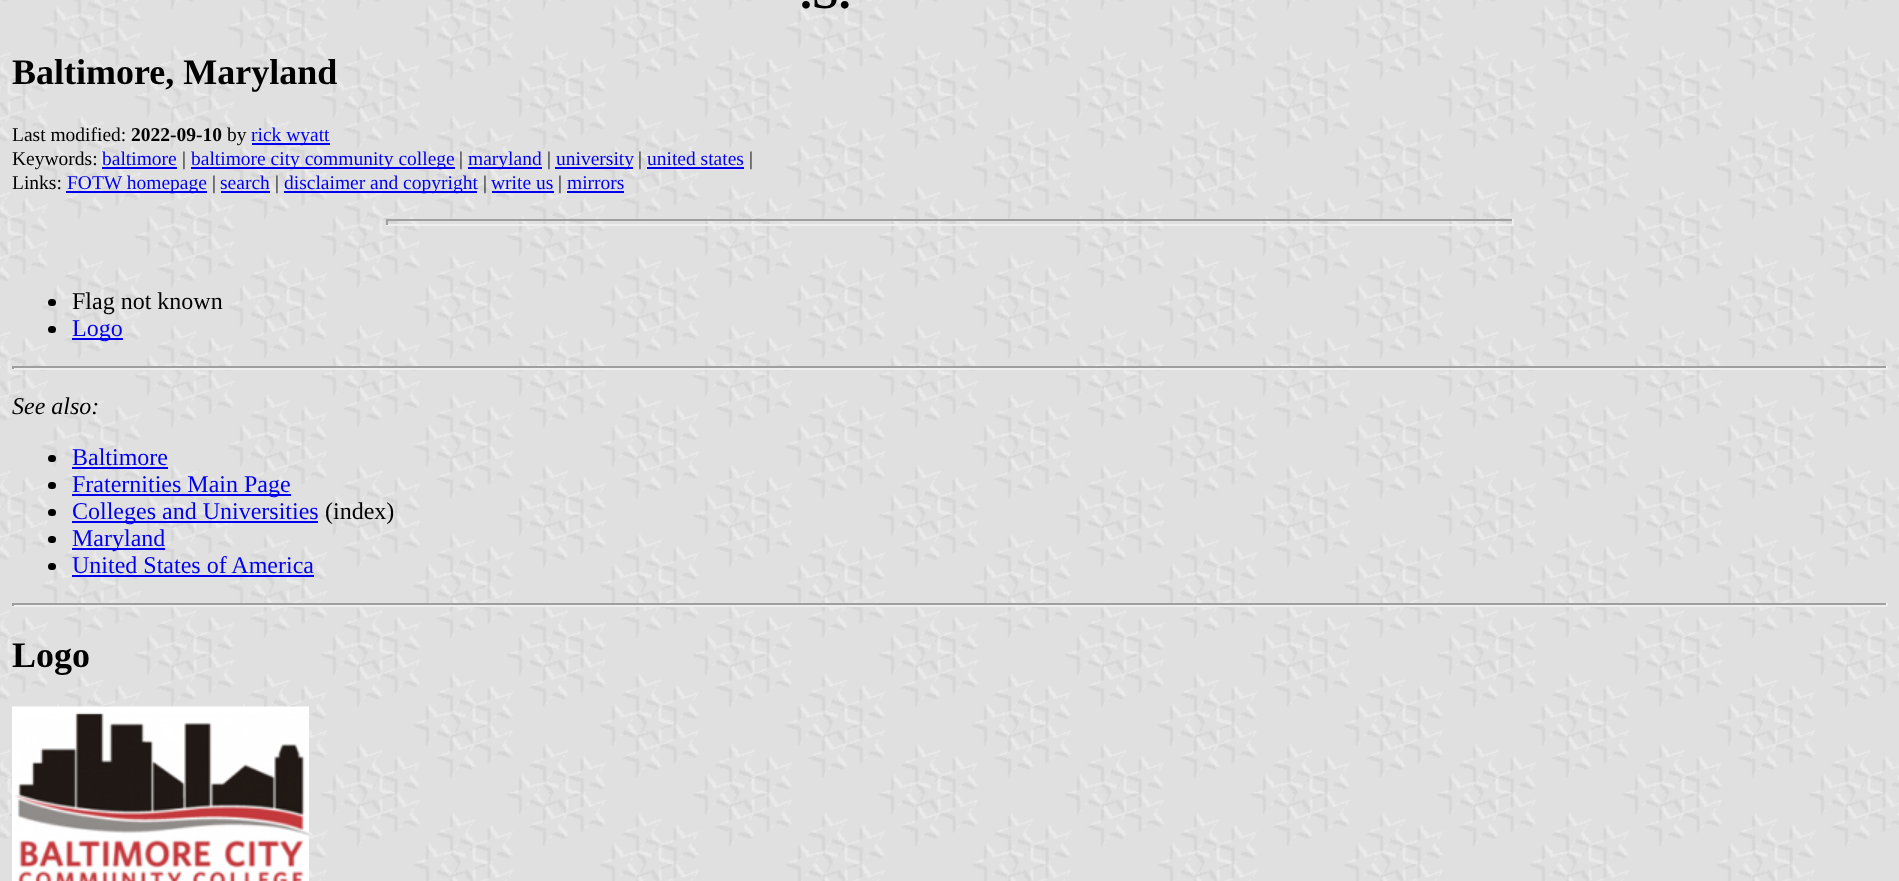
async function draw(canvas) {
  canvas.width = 1899
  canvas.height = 881
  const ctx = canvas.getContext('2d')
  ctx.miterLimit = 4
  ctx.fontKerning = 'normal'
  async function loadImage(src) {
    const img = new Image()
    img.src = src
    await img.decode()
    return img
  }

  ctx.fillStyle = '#fff'
  ctx.fillRect(0, 0, 1899, 881)
  ctx.drawImage(await loadImage('image0.png'), 0, 0, 1899, 881)
  ctx.font = 'bold 48px Liberation Serif'
  ctx.fillStyle = '#000'
  ctx.fillText('.S.', 800, 8)
  ctx.font = 'bold 36px Liberation Serif'
  ctx.fillText('Baltimore, Maryland', 12, 84)
  ctx.font = '19.5px Liberation Serif'
  ctx.fillText('Last modified:', 12, 141)
  ctx.font = 'bold 19.5px Liberation Serif'
  ctx.fillText('2022-09-10', 131, 141)
  ctx.font = '19.5px Liberation Serif'
  ctx.fillText('by', 227, 141)
  ctx.fillStyle = '#00e'
  ctx.fillRect(252, 143, 78, 2)
  ctx.fillText('rick wyatt', 251, 141)
  ctx.fillStyle = '#000'
  ctx.fillText('Keywords:', 12, 165)
  ctx.fillStyle = '#00e'
  ctx.fillText('baltimore', 102, 165)
  ctx.fillRect(102, 167, 75, 2)
  ctx.fillStyle = '#000'
  ctx.fillText('|', 182, 165)
  ctx.fillStyle = '#00e'
  ctx.fillRect(191, 167, 264, 2)
  ctx.fillText('baltimore city community college', 191, 165)
  ctx.fillStyle = '#000'
  ctx.fillText('|', 459, 165)
  ctx.fillStyle = '#00e'
  ctx.fillRect(468, 167, 74, 2)
  ctx.fillText('maryland', 468, 165)
  ctx.fillStyle = '#000'
  ctx.fillText('|', 547, 165)
  ctx.fillStyle = '#00e'
  ctx.fillRect(555, 167, 78, 2)
  ctx.fillText('university', 556, 165)
  ctx.fillStyle = '#000'
  ctx.fillText('|', 638, 165)
  ctx.fillStyle = '#00e'
  ctx.fillText('united states', 647, 165)
  ctx.fillRect(647, 167, 97, 2)
  ctx.fillStyle = '#000'
  ctx.fillText('|', 749, 165)
  ctx.fillText('Links:', 12, 189)
  ctx.fillStyle = '#00e'
  ctx.fillRect(66, 191, 141, 2)
  ctx.fillText('FOTW homepage', 67, 189)
  ctx.fillStyle = '#000'
  ctx.fillText('|', 212, 189)
  ctx.fillStyle = '#00e'
  ctx.fillText('search', 220, 189)
  ctx.fillRect(221, 191, 49, 2)
  ctx.fillStyle = '#000'
  ctx.fillText('|', 275, 189)
  ctx.fillStyle = '#00e'
  ctx.fillRect(284, 191, 193, 2)
  ctx.fillText('disclaimer and copyright', 284, 189)
  ctx.fillStyle = '#000'
  ctx.fillText('|', 483, 189)
  ctx.fillStyle = '#00e'
  ctx.fillText('write us', 491, 189)
  ctx.fillRect(492, 191, 62, 2)
  ctx.fillStyle = '#000'
  ctx.fillText('|', 558, 189)
  ctx.fillStyle = '#00e'
  ctx.fillText('mirrors', 567, 189)
  ctx.fillRect(567, 191, 57, 2)
  ctx.fillStyle = '#9f9f9f'
  ctx.fillRect(386, 219, 1128, 2)
  ctx.fillStyle = '#eee'
  ctx.fillRect(1512, 219, 2, 6)
  ctx.fillRect(386, 224, 1128, 2)
  ctx.fillStyle = '#9f9f9f'
  ctx.fillRect(386, 219, 2, 6)
  ctx.fillStyle = '#000'
  ctx.beginPath()
  ctx.roundRect(48, 299, 8, 7, 3.5)
  ctx.fill()
  ctx.font = '24px Liberation Serif'
  ctx.fillText('Flag not known', 72, 309)
  ctx.beginPath()
  ctx.roundRect(48, 326, 8, 7, 3.5)
  ctx.fill()
  ctx.fillStyle = '#00e'
  ctx.fillRect(72, 338, 51, 2)
  ctx.fillText('Logo', 72, 336)
  ctx.fillStyle = '#9f9f9f'
  ctx.fillRect(12, 366, 1875, 2)
  ctx.fillStyle = '#eee'
  ctx.fillRect(1886, 366, 2, 3)
  ctx.fillRect(12, 368, 1875, 2)
  ctx.fillStyle = '#9f9f9f'
  ctx.fillRect(12, 366, 2, 3)
  ctx.font = 'italic 24px Liberation Serif'
  ctx.fillStyle = '#000'
  ctx.fillText('See also:', 12, 414)
  ctx.beginPath()
  ctx.roundRect(48, 455, 8, 7, 3.5)
  ctx.fill()
  ctx.font = '24px Liberation Serif'
  ctx.fillStyle = '#00e'
  ctx.fillText('Baltimore', 72, 465)
  ctx.fillRect(72, 467, 96, 2)
  ctx.fillStyle = '#000'
  ctx.beginPath()
  ctx.roundRect(48, 482, 8, 7, 3.5)
  ctx.fill()
  ctx.fillStyle = '#00e'
  ctx.fillRect(72, 494, 219, 2)
  ctx.fillText('Fraternities Main Page', 72, 492)
  ctx.fillStyle = '#000'
  ctx.beginPath()
  ctx.roundRect(48, 509, 8, 7, 3.5)
  ctx.fill()
  ctx.fillStyle = '#00e'
  ctx.fillRect(72, 521, 246, 2)
  ctx.fillText('Colleges and Universities', 72, 519)
  ctx.fillStyle = '#000'
  ctx.fillText('(index)', 325, 519)
  ctx.beginPath()
  ctx.roundRect(48, 536, 8, 7, 3.5)
  ctx.fill()
  ctx.fillStyle = '#00e'
  ctx.fillRect(72, 548, 93, 2)
  ctx.fillText('Maryland', 72, 546)
  ctx.fillStyle = '#000'
  ctx.beginPath()
  ctx.roundRect(48, 563, 8, 7, 3.5)
  ctx.fill()
  ctx.fillStyle = '#00e'
  ctx.fillText('United States of America', 72, 573)
  ctx.fillRect(72, 575, 242, 2)
  ctx.fillStyle = '#9f9f9f'
  ctx.fillRect(12, 603, 1875, 2)
  ctx.fillStyle = '#eee'
  ctx.fillRect(1886, 603, 2, 3)
  ctx.fillRect(12, 605, 1875, 2)
  ctx.fillStyle = '#9f9f9f'
  ctx.fillRect(12, 603, 2, 3)
  ctx.font = 'bold 36px Liberation Serif'
  ctx.fillStyle = '#000'
  ctx.fillText('Logo', 12, 667)
  ctx.drawImage(await loadImage('image1.png'), 12, 706, 297, 175)
}

draw(document.querySelector('canvas'))
